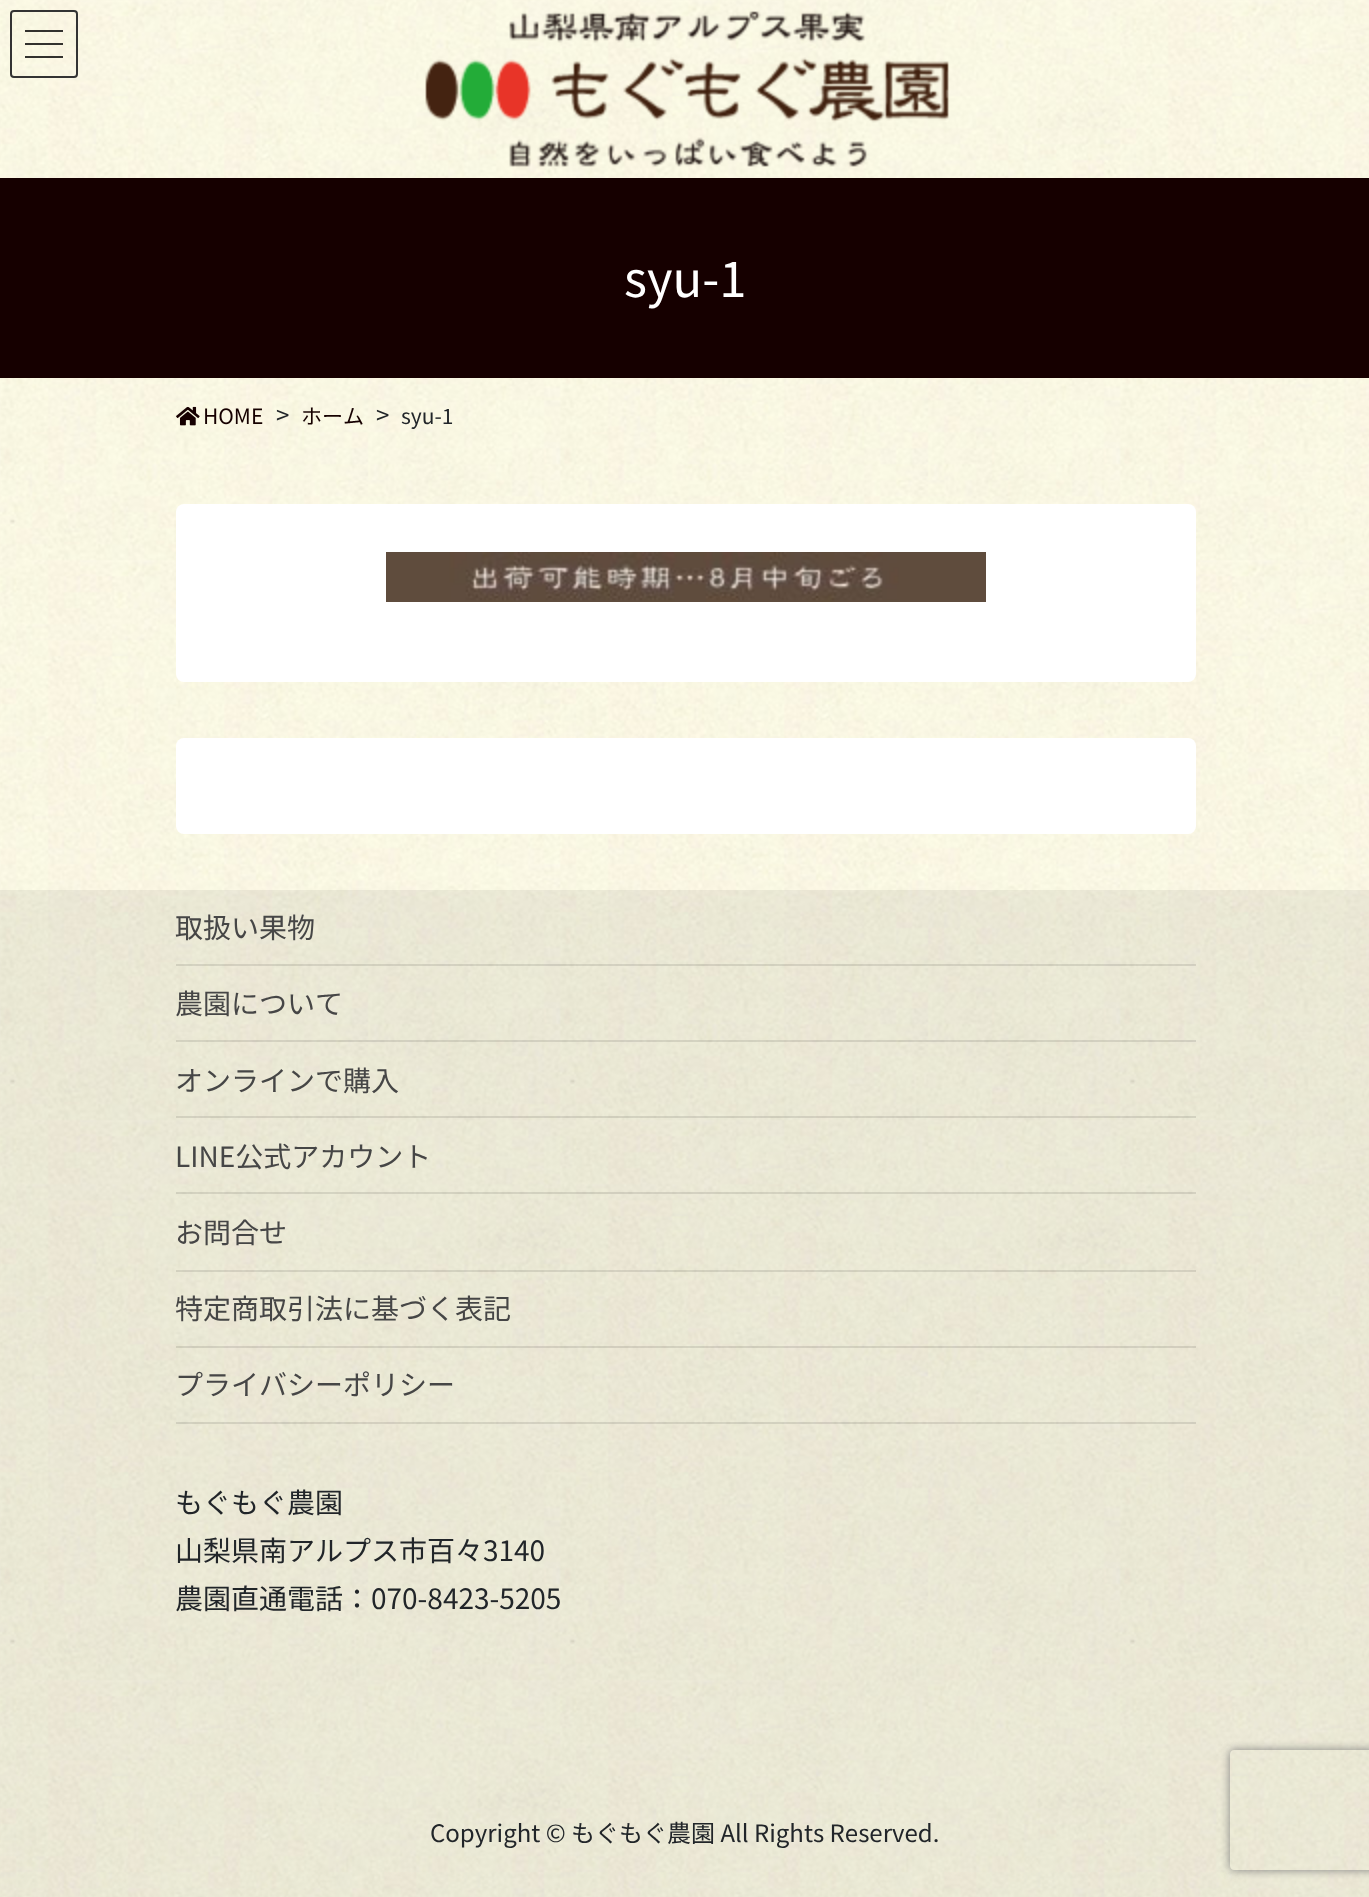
async function draw(canvas) {
  canvas.width = 1369
  canvas.height = 1897
  const ctx = canvas.getContext('2d')
  ctx.miterLimit = 4
  ctx.fontKerning = 'none'
  async function loadImage(src) {
    const img = new Image()
    img.src = src
    await img.decode()
    return img
  }

  ctx.fillStyle = '#fff'
  ctx.fillRect(0, 0, 1369, 1897)
  ctx.drawImage(await loadImage('image0.png'), 0, 0, 1369, 1897)
  ctx.fillStyle = '#000000cc'
  ctx.fillRect(25, 30, 38, 2)
  ctx.fillRect(25, 43, 38, 2)
  ctx.fillRect(25, 56, 38, 2)
  ctx.beginPath()
  ctx.roundRect(11, 11, 66, 66, 3)
  ctx.strokeStyle = '#333'
  ctx.lineWidth = 2
  ctx.stroke()
  ctx.drawImage(await loadImage('image1.png'), 425, 11, 524, 156)
  ctx.fillStyle = '#160000'
  ctx.fillRect(0, 178, 1369, 200)
  ctx.font = '49px Noto Sans JP'
  ctx.fillStyle = '#fff'
  ctx.fillText('syu-1', 624, 297)
  ctx.drawImage(await loadImage('image2.png'), 176, 406, 24, 20)
  ctx.font = '21px Noto Sans JP'
  ctx.fillStyle = '#160000'
  ctx.fillText('HOME', 203, 424)
  ctx.font = '24px Noto Sans JP'
  ctx.fillStyle = '#212529'
  ctx.fillText('>', 276, 424)
  ctx.font = '21px Noto Sans JP'
  ctx.fillStyle = '#160000'
  ctx.fillText('ホーム', 301, 424)
  ctx.font = '24px Noto Sans JP'
  ctx.fillStyle = '#212529'
  ctx.fillText('>', 376, 424)
  ctx.font = '21px Noto Sans JP'
  ctx.fillText('syu-1', 401, 424)
  ctx.fillStyle = '#fff'
  ctx.beginPath()
  ctx.roundRect(176, 504, 1020, 178, 8)
  ctx.fill()
  ctx.drawImage(await loadImage('image3.png'), 386, 552, 600, 50)
  ctx.beginPath()
  ctx.roundRect(176, 738, 1020, 96, 8)
  ctx.fill()
  ctx.fillStyle = '#0000000f'
  ctx.fillRect(0, 890, 1369, 1007)
  ctx.fillStyle = '#0000001a'
  ctx.fillRect(176, 964, 1020, 2)
  ctx.font = '28px Noto Sans JP'
  ctx.fillStyle = '#464646'
  ctx.fillText('取扱い果物', 175, 938)
  ctx.fillStyle = '#0000001a'
  ctx.fillRect(176, 1040, 1020, 2)
  ctx.fillStyle = '#464646'
  ctx.fillText('農園について', 175, 1014)
  ctx.fillStyle = '#0000001a'
  ctx.fillRect(176, 1116, 1020, 2)
  ctx.fillStyle = '#464646'
  ctx.fillText('オンラインで購入', 175, 1091)
  ctx.fillStyle = '#0000001a'
  ctx.fillRect(176, 1192, 1020, 2)
  ctx.fillStyle = '#464646'
  ctx.fillText('LINE公式アカウント', 175, 1167)
  ctx.fillStyle = '#0000001a'
  ctx.fillRect(176, 1270, 1020, 2)
  ctx.fillStyle = '#464646'
  ctx.fillText('お問合せ', 175, 1243)
  ctx.fillStyle = '#0000001a'
  ctx.fillRect(176, 1346, 1020, 2)
  ctx.fillStyle = '#464646'
  ctx.fillText('特定商取引法に基づく表記', 175, 1319)
  ctx.fillStyle = '#0000001a'
  ctx.fillRect(176, 1422, 1020, 2)
  ctx.fillStyle = '#464646'
  ctx.fillText('プライバシーポリシー', 175, 1395)
  ctx.fillStyle = '#212529'
  ctx.fillText('もぐもぐ農園', 175, 1513)
  ctx.fillText('山梨県南アルプス市百々3140', 175, 1561)
  ctx.fillText('農園直通電話：070-8423-5205', 175, 1609)
  ctx.font = '24px Noto Sans JP'
  ctx.fillText('Copyright © もぐもぐ農園 All Rights Reserved.', 430, 1842)
  ctx.save()
  ctx.beginPath()
  ctx.moveTo(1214, 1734)
  ctx.lineTo(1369, 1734)
  ctx.lineTo(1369, 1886)
  ctx.lineTo(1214, 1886)
  ctx.closePath()
  ctx.moveTo(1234, 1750)
  ctx.lineTo(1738, 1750)
  ctx.bezierCurveTo(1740, 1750, 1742, 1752, 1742, 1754)
  ctx.lineTo(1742, 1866)
  ctx.bezierCurveTo(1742, 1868, 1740, 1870, 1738, 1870)
  ctx.lineTo(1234, 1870)
  ctx.bezierCurveTo(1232, 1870, 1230, 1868, 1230, 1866)
  ctx.lineTo(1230, 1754)
  ctx.bezierCurveTo(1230, 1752, 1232, 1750, 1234, 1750)
  ctx.closePath()
  ctx.clip('evenodd')
  ctx.fillStyle = '#808080'
  ctx.filter = 'blur(5px)'
  ctx.beginPath()
  ctx.roundRect(1230, 1750, 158, 120, 4)
  ctx.fill()
  ctx.filter = 'none'
  ctx.restore()
}

draw(document.querySelector('canvas'))
